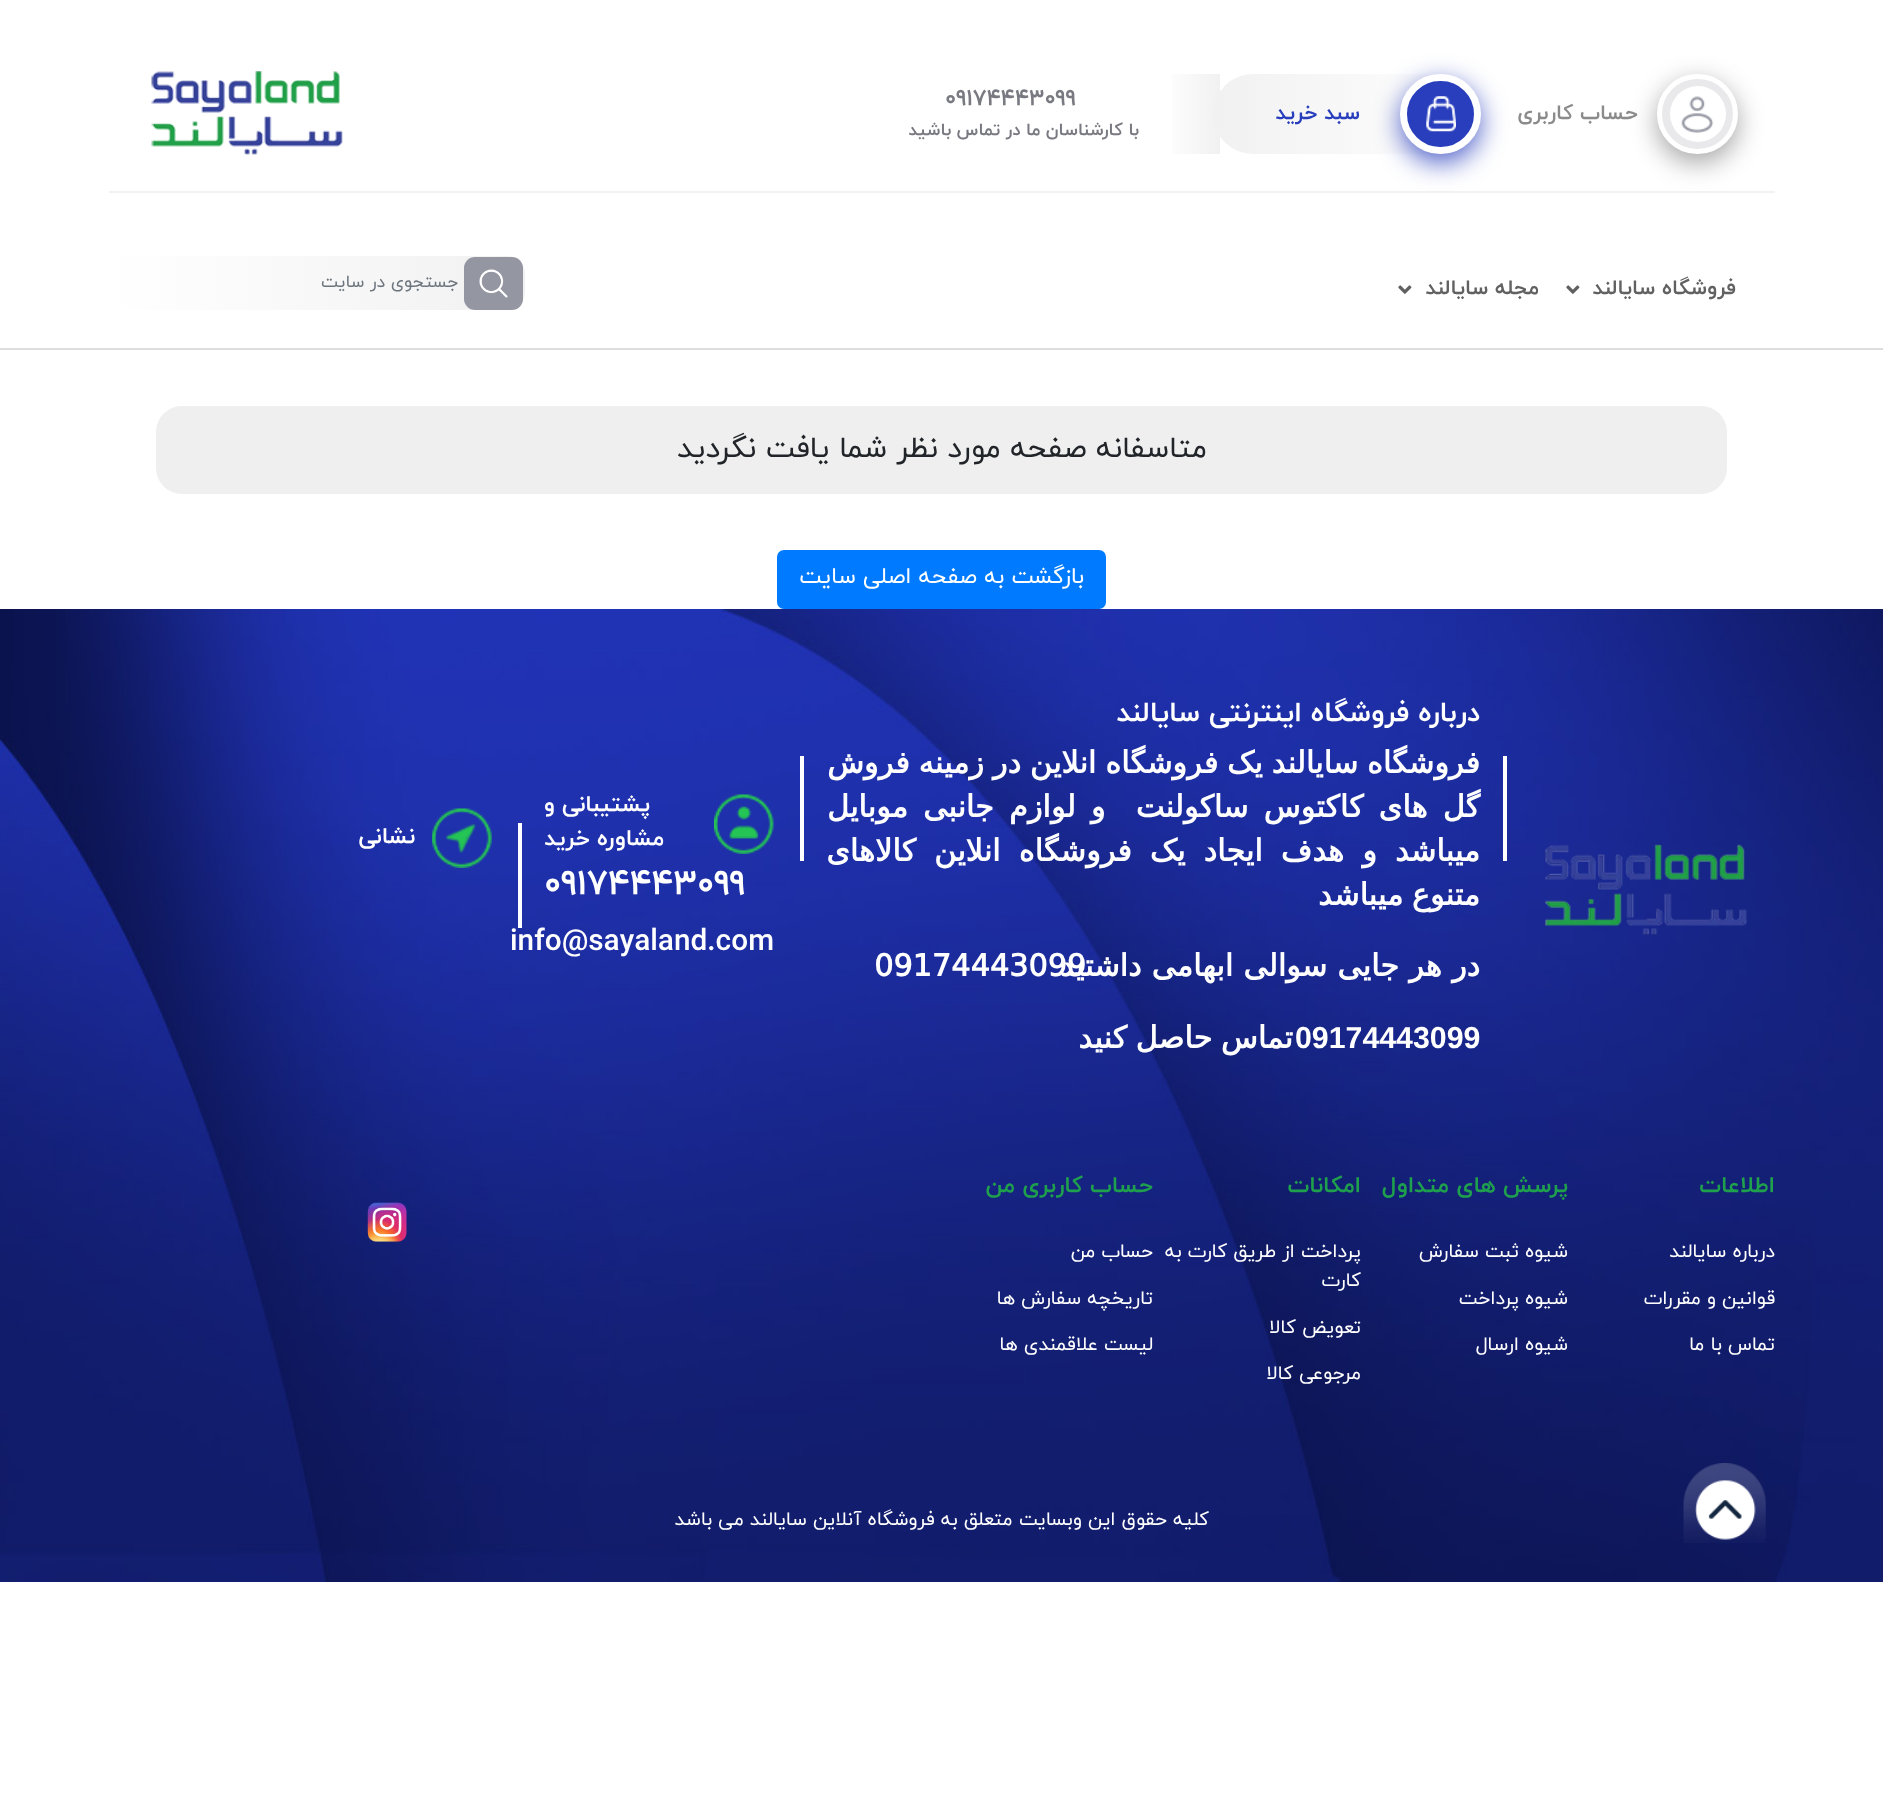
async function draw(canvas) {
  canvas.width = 1883
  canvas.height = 1805
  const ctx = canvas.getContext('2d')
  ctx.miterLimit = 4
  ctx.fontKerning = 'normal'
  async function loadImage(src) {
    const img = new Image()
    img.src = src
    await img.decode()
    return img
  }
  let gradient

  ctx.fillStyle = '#fff'
  ctx.fillRect(0, 0, 1883, 1805)
  ctx.fillStyle = '#ddd'
  ctx.fillRect(0, 348, 1883, 2)
  ctx.fillStyle = '#f2f2f2'
  ctx.fillRect(109, 191, 1666, 2)
  ctx.fillStyle = '#00000059'
  ctx.filter = 'blur(13px)'
  ctx.beginPath()
  ctx.roundRect(1657, 82, 81, 81, 40.5)
  ctx.fill()
  ctx.filter = 'none'
  ctx.fillStyle = '#e9e9eb'
  ctx.beginPath()
  ctx.roundRect(1659.5, 76.5, 76, 75, 37.5)
  ctx.fill()
  ctx.strokeStyle = '#fff'
  ctx.lineWidth = 5
  ctx.stroke()
  ctx.fillStyle = '#fff'
  ctx.beginPath()
  ctx.arc(1698, 114, 28, 0, 2 * Math.PI)
  ctx.fill()
  ctx.drawImage(await loadImage('image0.png'), 1681, 96, 33, 37)
  gradient = ctx.createLinearGradient(1220, 114, 803, 114)
  gradient.addColorStop(0, '#f1f1f1')
  gradient.addColorStop(0.14, '#fff')
  gradient.addColorStop(1, '#fff')
  ctx.fillStyle = gradient
  ctx.fillRect(1172, 74, 48, 80)
  gradient = ctx.createLinearGradient(1213, 114, 1481, 114)
  gradient.addColorStop(0, '#f1f1f1')
  gradient.addColorStop(1, '#fff')
  ctx.fillStyle = gradient
  ctx.beginPath()
  ctx.roundRect(1213, 74, 268, 80, 40)
  ctx.fill()
  ctx.fillStyle = '#293ebdcc'
  ctx.filter = 'blur(13px)'
  ctx.beginPath()
  ctx.roundRect(1400, 82, 81, 81, 40.5)
  ctx.fill()
  ctx.filter = 'none'
  ctx.direction = 'rtl'
  ctx.font = 'bold 21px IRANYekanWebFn'
  ctx.fillStyle = '#8b8b8b'
  ctx.fillText('حساب کاربری', 1638, 119)
  ctx.fillStyle = '#293ebd'
  ctx.beginPath()
  ctx.roundRect(1403.5, 77.5, 74, 73, 36.5)
  ctx.fill()
  ctx.lineWidth = 7
  ctx.stroke()
  ctx.drawImage(await loadImage('image1.png'), 1426, 96, 30, 36)
  ctx.fillText('سبد خرید', 1360, 119)
  ctx.direction = 'ltr'
  ctx.font = 'bold 22.75px IRANYekanWebFn'
  ctx.fillStyle = '#797981'
  ctx.fillText('09174443099', 945, 105)
  ctx.direction = 'rtl'
  ctx.font = 'bold 17.5px IRANYekanWebFn'
  ctx.fillText('با کارشناسان ما در تماس باشید', 1139, 135)
  ctx.drawImage(await loadImage('image2.png'), 151, 71, 192, 84)
  ctx.font = 'bold 21px IRANYekanWebFn'
  ctx.fillStyle = '#616161'
  ctx.fillText('فروشگاه سایالند', 1736, 294)
  ctx.drawImage(await loadImage('image3.png'), 1566, 285, 14, 9)
  ctx.fillText('مجله سایالند', 1539, 294)
  ctx.drawImage(await loadImage('image3.png'), 1398, 285, 14, 9)
  gradient = ctx.createLinearGradient(525, 283, 109, 283)
  gradient.addColorStop(0, '#f1f1f1')
  gradient.addColorStop(1, '#fff')
  ctx.fillStyle = gradient
  ctx.beginPath()
  ctx.roundRect(109, 256, 416, 54, 18)
  ctx.fill()
  ctx.fillStyle = '#9496a2'
  ctx.beginPath()
  ctx.roundRect(464, 257, 59, 53, 11)
  ctx.fill()
  ctx.drawImage(await loadImage('image4.png'), 479, 269, 29, 29)
  ctx.font = '17.5px IRANYekanWebFn'
  ctx.fillStyle = '#6c757d'
  ctx.fillText('جستجوی در سایت', 458, 287)
  ctx.fillStyle = '#efefef'
  ctx.beginPath()
  ctx.roundRect(156, 406, 1571, 88, 26)
  ctx.fill()
  ctx.font = '29.75px IRANYekanWebFn'
  ctx.fillStyle = '#212529'
  ctx.fillText('متاسفانه صفحه مورد نظر شما یافت نگردید', 1207, 457)
  ctx.fillStyle = '#007bff'
  ctx.beginPath()
  ctx.roundRect(778, 551, 327, 57, 6)
  ctx.fill()
  ctx.strokeStyle = '#007bff'
  ctx.lineWidth = 2
  ctx.stroke()
  ctx.font = '22.75px IRANYekanWebFn'
  ctx.fillStyle = '#fff'
  ctx.fillText('بازگشت به صفحه اصلی سایت', 1084, 583)
  ctx.drawImage(await loadImage('image5.png'), 0, 609, 1883, 973)
  ctx.font = 'bold 28px IRANYekanWebFn'
  ctx.fillText('درباره فروشگاه اینترنتی سایالند', 1480, 721)
  ctx.fillRect(1503, 756, 4, 105)
  ctx.wordSpacing = '-0.75px'
  ctx.font = 'bold 30.3px DejaVu Sans'
  ctx.fillText('فروشگاه سایالند یک فروشگاه انلاین در زمینه فروش', 1480, 773)
  ctx.wordSpacing = '5.5px'
  ctx.fillText('گل های کاکتوس ساکولنت  و لوازم جانبی موبایل', 1480, 817)
  ctx.wordSpacing = '8.5px'
  ctx.fillText('میباشد و هدف ایجاد یک فروشگاه انلاین کالاهای', 1480, 861)
  ctx.wordSpacing = '-1px'
  ctx.fillText('متنوع میباشد', 1480, 905)
  ctx.wordSpacing = '0px'
  ctx.direction = 'ltr'
  ctx.fillText('09174443099', 874, 976)
  ctx.wordSpacing = '0.5px'
  ctx.direction = 'rtl'
  ctx.fillText('در هر جایی سوالی ابهامی داشتید', 1480, 976)
  ctx.wordSpacing = '0px'
  ctx.direction = 'ltr'
  ctx.font = 'bold 30.3px Liberation Sans'
  ctx.fillText('09174443099', 1295, 1048)
  ctx.wordSpacing = '-1px'
  ctx.direction = 'rtl'
  ctx.font = 'bold 30.3px DejaVu Sans'
  ctx.fillText('تماس حاصل کنید', 1293, 1048)
  ctx.fillRect(800, 756, 4, 105)
  ctx.drawImage(await loadImage('image6.png'), 714, 794, 60, 60)
  ctx.wordSpacing = '0px'
  ctx.font = 'bold 22.75px IRANYekanWebFn'
  ctx.fillText('پشتیبانی و', 650, 811)
  ctx.fillText('مشاوره خرید', 664, 845)
  ctx.fillRect(518, 823, 4, 105)
  ctx.direction = 'ltr'
  ctx.font = 'bold 35px IRANYekanWebFn'
  ctx.fillText('09174443099', 544, 894)
  ctx.font = 'bold 29.75px IRANYekanWebFn'
  ctx.fillText('info@sayaland.com', 510, 950)
  ctx.drawImage(await loadImage('image7.png'), 432, 808, 60, 60)
  ctx.direction = 'rtl'
  ctx.font = 'bold 22.75px IRANYekanWebFn'
  ctx.fillText('نشانی', 415, 843)
  ctx.drawImage(await loadImage('image8.png'), 1545, 844, 202, 91)
  ctx.fillStyle = '#1fa04d'
  ctx.fillText('اطلاعات', 1775, 1192)
  ctx.font = '19.25px IRANYekanWebFn'
  ctx.fillStyle = '#fff'
  ctx.fillText('درباره سایالند', 1775, 1257)
  ctx.fillText('قوانین و مقررات', 1775, 1304)
  ctx.fillText('تماس با ما', 1775, 1350)
  ctx.font = 'bold 22.75px IRANYekanWebFn'
  ctx.fillStyle = '#1fa04d'
  ctx.fillText('پرسش های متداول', 1568, 1192)
  ctx.font = '19.25px IRANYekanWebFn'
  ctx.fillStyle = '#fff'
  ctx.fillText('شیوه ثبت سفارش', 1568, 1257)
  ctx.fillText('شیوه پرداخت', 1568, 1304)
  ctx.fillText('شیوه ارسال', 1568, 1350)
  ctx.font = 'bold 22.75px IRANYekanWebFn'
  ctx.fillStyle = '#1fa04d'
  ctx.fillText('امکانات', 1361, 1192)
  ctx.font = '19.25px IRANYekanWebFn'
  ctx.fillStyle = '#fff'
  ctx.fillText('پرداخت از طریق کارت به', 1361, 1257)
  ctx.fillText('کارت', 1361, 1286)
  ctx.fillText('تعویض کالا', 1361, 1333)
  ctx.fillText('مرجوعی کالا', 1361, 1379)
  ctx.font = 'bold 22.75px IRANYekanWebFn'
  ctx.fillStyle = '#1fa04d'
  ctx.fillText('حساب کاربری من', 1153, 1192)
  ctx.font = '19.25px IRANYekanWebFn'
  ctx.fillStyle = '#fff'
  ctx.fillText('حساب من', 1153, 1257)
  ctx.fillText('تاریخچه سفارش ها', 1153, 1304)
  ctx.fillText('لیست علاقمندی ها', 1153, 1350)
  ctx.drawImage(await loadImage('image9.png'), 367, 1202, 40, 40)
  ctx.fillText('کلیه حقوق این وبسایت متعلق به فروشگاه آنلاین سایالند می باشد', 1209, 1525)
  ctx.drawImage(await loadImage('image10.png'), 1683, 1463, 83, 80)
}

draw(document.querySelector('canvas'))
